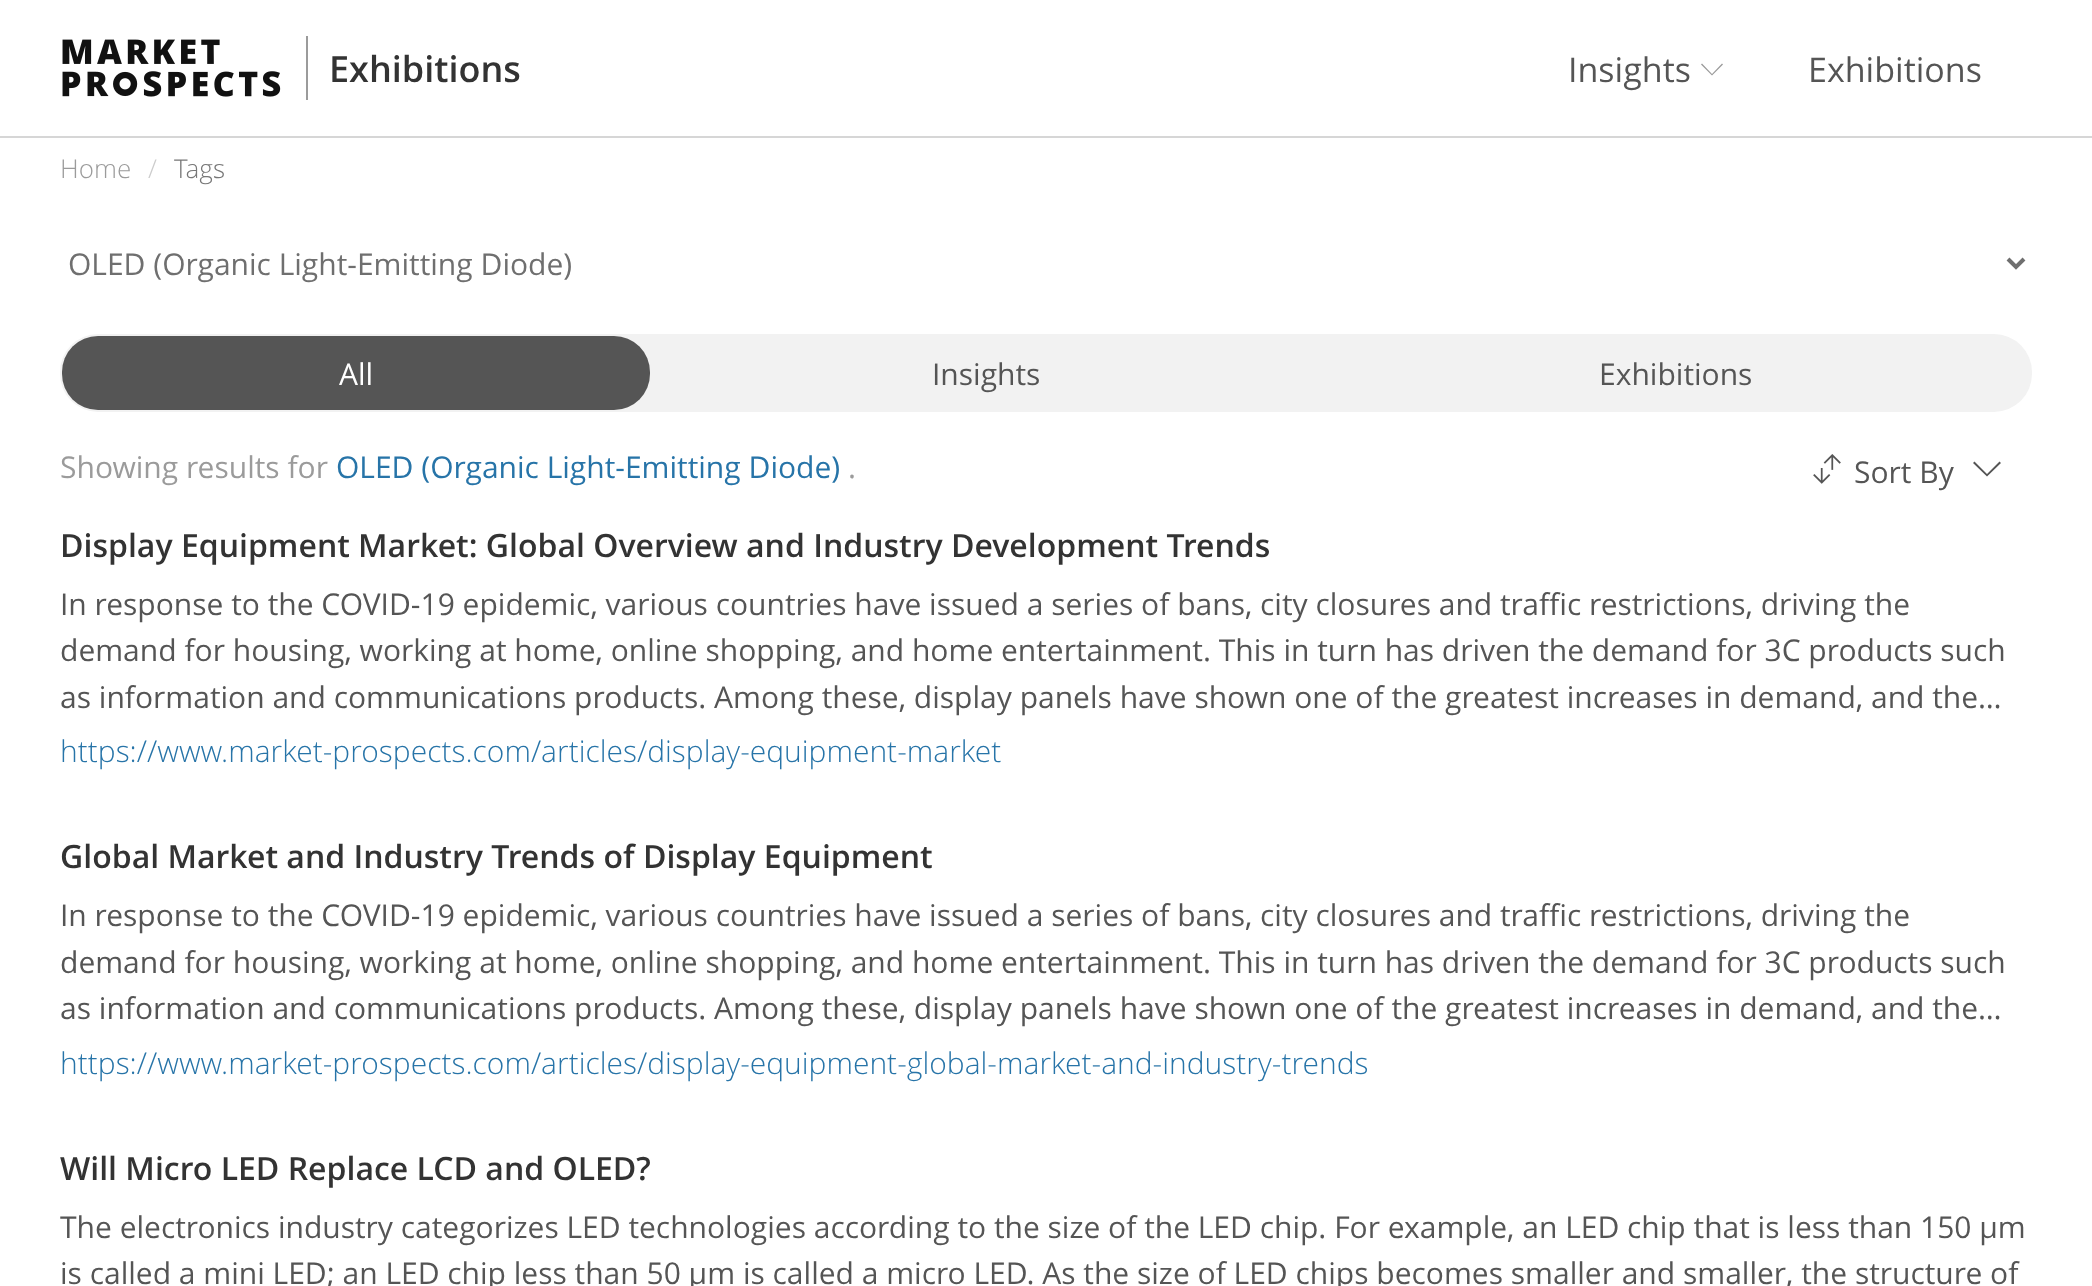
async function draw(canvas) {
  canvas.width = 2092
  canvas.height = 1286
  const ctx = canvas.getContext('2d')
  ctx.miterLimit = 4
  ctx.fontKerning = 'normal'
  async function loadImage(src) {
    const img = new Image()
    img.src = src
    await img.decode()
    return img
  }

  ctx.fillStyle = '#fff'
  ctx.fillRect(0, 0, 2092, 1286)
  ctx.fillStyle = '#d6d6d6'
  ctx.fillRect(0, 136, 2092, 2)
  ctx.drawImage(await loadImage('image0.png'), 62, 39, 219, 58)
  ctx.fillStyle = '#9b9b9b'
  ctx.fillRect(306, 36, 2, 64)
  ctx.font = '600 36px Open Sans'
  ctx.fillStyle = '#333'
  ctx.fillText('Exhibitions', 329, 82)
  ctx.font = '34px Open Sans'
  ctx.fillStyle = '#555'
  ctx.fillText('Insights', 1568, 82)
  ctx.fillStyle = '#9b9b9b'
  ctx.beginPath()
  ctx.moveTo(1723, 64.5)
  ctx.lineTo(1712, 75.5)
  ctx.lineTo(1701, 64.5)
  ctx.lineTo(1702, 63.5)
  ctx.lineTo(1712, 74)
  ctx.lineTo(1722, 63.5)
  ctx.closePath()
  ctx.fill()
  ctx.fillStyle = '#555'
  ctx.fillText('Exhibitions', 1808, 82)
  ctx.font = '300 26px Open Sans'
  ctx.fillStyle = '#9b9b9b'
  ctx.fillText('Home', 60, 178)
  ctx.fillStyle = '#ccc'
  ctx.fillText('/', 148, 178)
  ctx.fillStyle = '#777'
  ctx.fillText('Tags', 174, 178)
  ctx.beginPath()
  ctx.moveTo(2008, 259)
  ctx.lineTo(2016, 267)
  ctx.lineTo(2024, 259)
  ctx.strokeStyle = '#6f6f6f'
  ctx.lineWidth = 4
  ctx.stroke()
  ctx.font = '30px Open Sans'
  ctx.fillStyle = '#6f6f6f'
  ctx.fillText('OLED (Organic Light-Emitting Diode)', 68, 275)
  ctx.fillStyle = '#f2f2f2'
  ctx.beginPath()
  ctx.roundRect(60, 334, 1972, 78, 38)
  ctx.fill()
  ctx.fillStyle = '#555'
  ctx.beginPath()
  ctx.roundRect(62, 336, 588, 74, 36)
  ctx.fill()
  ctx.fillStyle = '#fff'
  ctx.fillText('All', 339, 385)
  ctx.fillStyle = '#555'
  ctx.fillText('Insights', 932, 385)
  ctx.fillText('Exhibitions', 1599, 385)
  ctx.fillStyle = '#9b9b9b'
  ctx.fillText('Showing results for', 60, 478)
  ctx.fillStyle = '#2774a8'
  ctx.fillText('OLED (Organic Light-Emitting Diode)', 336, 478)
  ctx.fillStyle = '#9b9b9b'
  ctx.fillText('.', 848, 478)
  ctx.drawImage(await loadImage('image1.png'), 1813, 454, 28, 30)
  ctx.fillStyle = '#555'
  ctx.fillText('Sort By', 1854, 483)
  ctx.beginPath()
  ctx.moveTo(2001, 463)
  ctx.lineTo(1987, 476.5)
  ctx.lineTo(1973, 463)
  ctx.lineTo(1974.5, 461.5)
  ctx.lineTo(1987, 474)
  ctx.lineTo(1999.5, 461.5)
  ctx.closePath()
  ctx.fill()
  ctx.font = '600 32px Open Sans'
  ctx.fillStyle = '#333'
  ctx.fillText('Display Equipment Market: Global Overview and Industry Development Trends', 60, 557)
  ctx.font = '30px Open Sans'
  ctx.fillStyle = '#555'
  ctx.fillText('In response to the COVID-19 epidemic, various countries have issued a series of bans, city closures and traffic restrictions, driving the', 60, 615)
  ctx.fillText('demand for housing, working at home, online shopping, and home entertainment. This in turn has driven the demand for 3C products such', 60, 661)
  ctx.fillText('as information and communications products. Among these, display panels have shown one of the greatest increases in demand, and the…', 60, 708)
  ctx.font = '300 30px Open Sans'
  ctx.fillStyle = '#2774a8'
  ctx.fillText('https://www.market-prospects.com/articles/display-equipment-market', 60, 762)
  ctx.font = '600 32px Open Sans'
  ctx.fillStyle = '#333'
  ctx.fillText('Global Market and Industry Trends of Display Equipment', 60, 868)
  ctx.font = '30px Open Sans'
  ctx.fillStyle = '#555'
  ctx.fillText('In response to the COVID-19 epidemic, various countries have issued a series of bans, city closures and traffic restrictions, driving the', 60, 926)
  ctx.fillText('demand for housing, working at home, online shopping, and home entertainment. This in turn has driven the demand for 3C products such', 60, 973)
  ctx.fillText('as information and communications products. Among these, display panels have shown one of the greatest increases in demand, and the…', 60, 1019)
  ctx.font = '300 30px Open Sans'
  ctx.fillStyle = '#2774a8'
  ctx.fillText('https://www.market-prospects.com/articles/display-equipment-global-market-and-industry-trends', 60, 1074)
  ctx.font = '600 32px Open Sans'
  ctx.fillStyle = '#333'
  ctx.fillText('Will Micro LED Replace LCD and OLED?', 60, 1180)
  ctx.font = '30px Open Sans'
  ctx.fillStyle = '#555'
  ctx.fillText('The electronics industry categorizes LED technologies according to the size of the LED chip. For example, an LED chip that is less than 150 μm', 60, 1238)
  ctx.fillText('is called a mini LED; an LED chip less than 50 μm is called a micro LED. As the size of LED chips becomes smaller and smaller, the structure of', 60, 1284)
}

draw(document.querySelector('canvas'))
